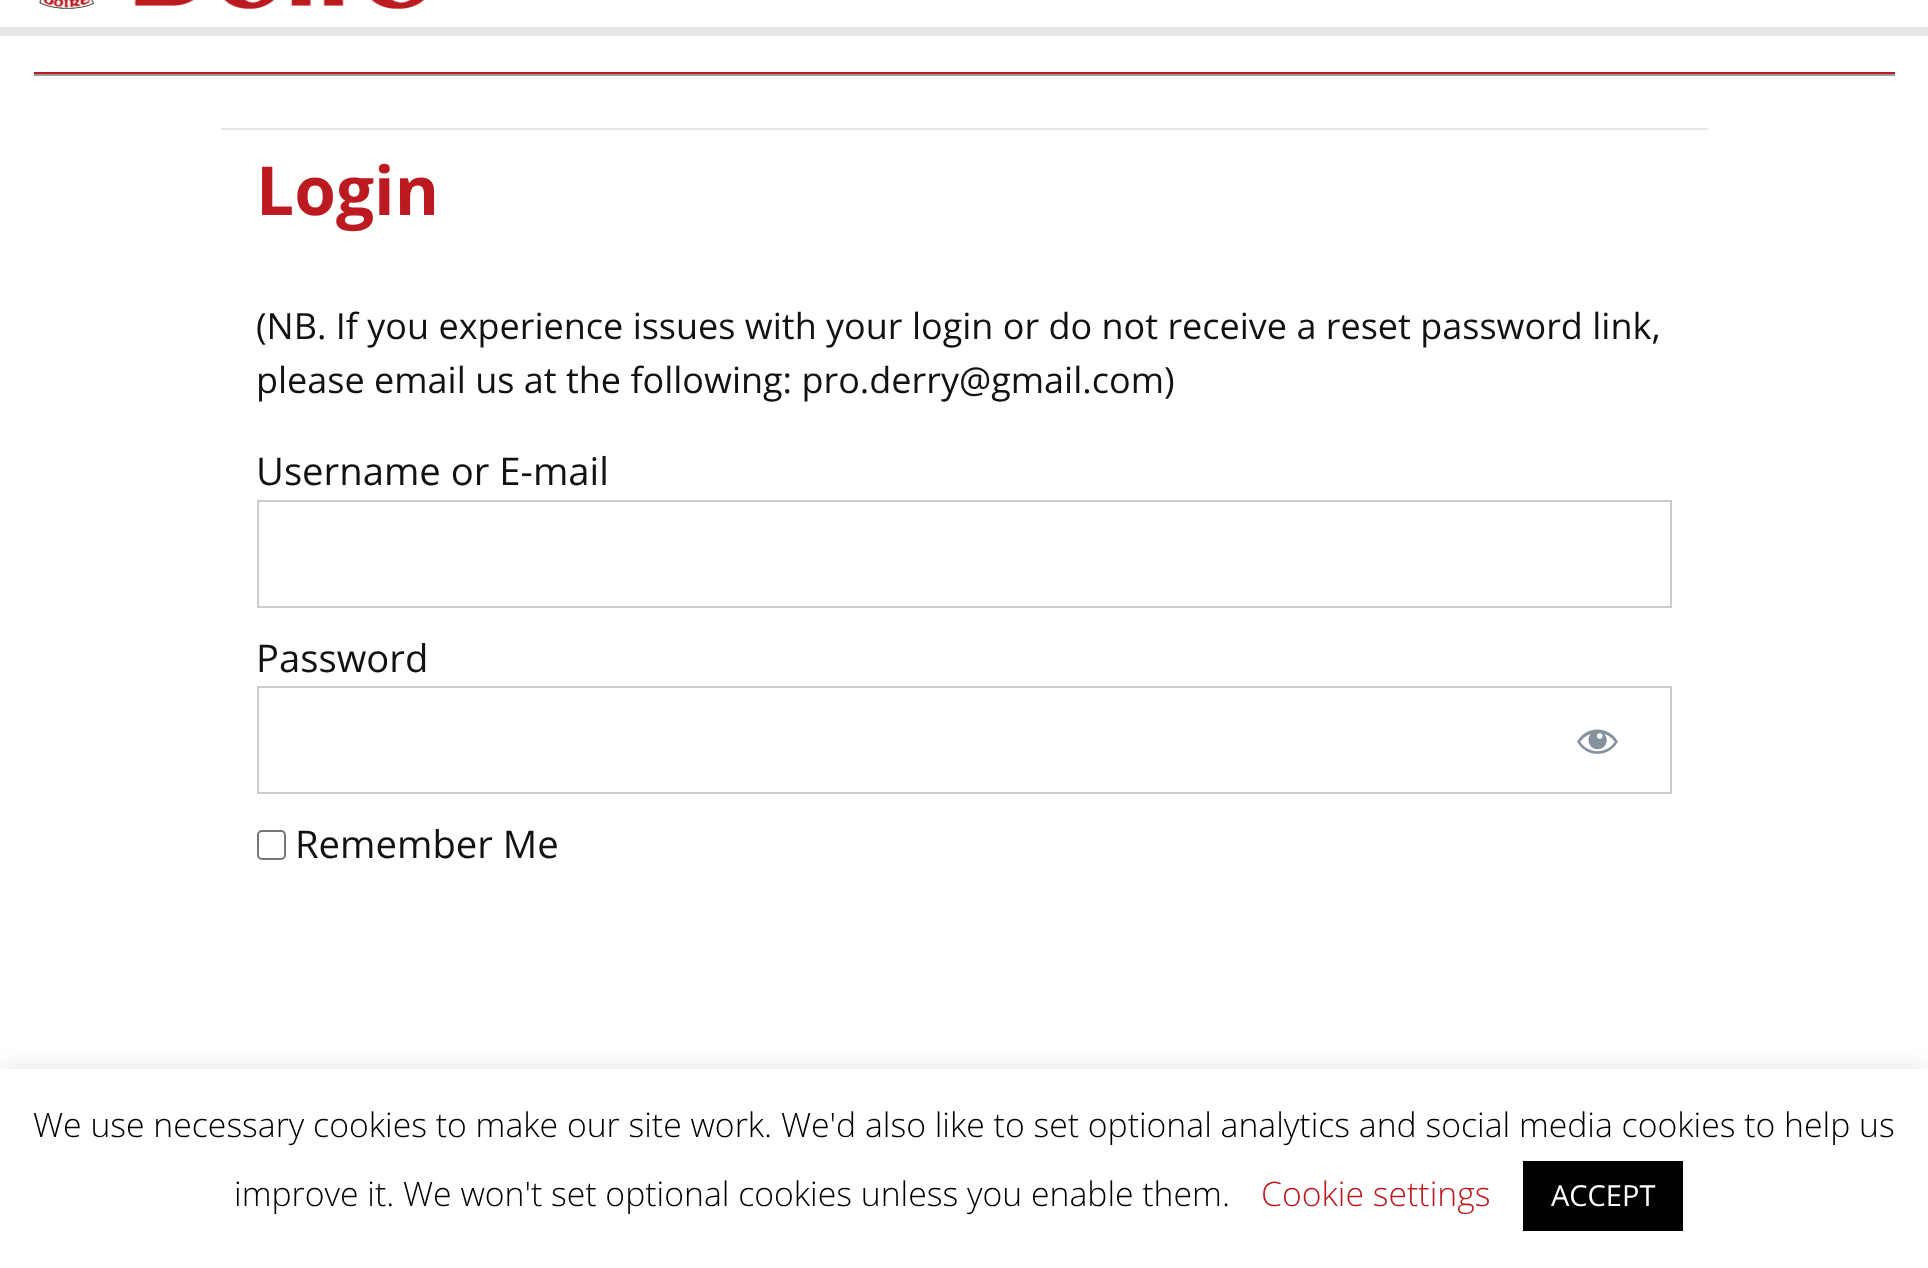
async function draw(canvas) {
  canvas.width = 1928
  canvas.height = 1268
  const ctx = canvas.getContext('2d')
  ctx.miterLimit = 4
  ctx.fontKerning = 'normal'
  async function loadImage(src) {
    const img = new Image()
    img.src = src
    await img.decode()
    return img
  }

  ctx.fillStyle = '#fff'
  ctx.fillRect(0, 0, 1928, 1268)
  ctx.fillStyle = '#e6e6e6'
  ctx.fillRect(0, 27, 1928, 9)
  ctx.drawImage(await loadImage('image0.png'), 38, 0, 387, 9)
  ctx.fillStyle = '#999'
  ctx.fillRect(34, 74, 1861, 2)
  ctx.fillStyle = '#bb1b20'
  ctx.fillRect(34, 72, 1861, 2)
  ctx.fillStyle = '#e7e7e7'
  ctx.fillRect(221, 128, 1487, 2)
  ctx.font = 'bold 67.5px Open Sans'
  ctx.fillStyle = '#bb1b20'
  ctx.fillText('Login', 256, 215)
  ctx.font = '36px Open Sans'
  ctx.fillStyle = '#121212'
  ctx.fillText('(NB. If you experience issues with your login or do not receive a reset password link,', 256, 339)
  ctx.fillText('please email us at the following: pro.derry@gmail.com)', 256, 393)
  ctx.font = '38.25px Open Sans'
  ctx.fillText('Username or E-mail', 256, 485)
  ctx.strokeStyle = '#ccc'
  ctx.lineWidth = 2
  ctx.strokeRect(258, 501, 1413, 106)
  ctx.fillText('Password', 256, 672)
  ctx.strokeRect(258, 687, 1413, 106)
  ctx.drawImage(await loadImage('image1.png'), 1577, 729, 41, 25)
  ctx.beginPath()
  ctx.roundRect(258, 831, 27, 28, 4)
  ctx.strokeStyle = '#767676'
  ctx.stroke()
  ctx.fillText('Remember Me', 295, 858)
  ctx.fillStyle = '#acabab4d'
  ctx.filter = 'blur(11px)'
  ctx.beginPath()
  ctx.rect(0, 1067, 1928, 200)
  ctx.fill()
  ctx.filter = 'none'
  ctx.fillStyle = '#fff'
  ctx.fillRect(0, 1069, 1928, 199)
  ctx.font = '300 33.75px Open Sans'
  ctx.fillStyle = '#000'
  ctx.fillText('We use necessary cookies to make our site work. We\'d also like to set optional analytics and social media cookies to help us', 33, 1137)
  ctx.fillText('improve it. We won\'t set optional cookies unless you enable them.', 234, 1206)
  ctx.fillStyle = '#bb1b20'
  ctx.fillText('Cookie settings', 1261, 1206)
  ctx.fillStyle = '#000'
  ctx.fillRect(1523, 1161, 160, 70)
  ctx.font = '29px Open Sans'
  ctx.fillStyle = '#fff'
  ctx.fillText('ACCEPT', 1551, 1206)
}

draw(document.querySelector('canvas'))
